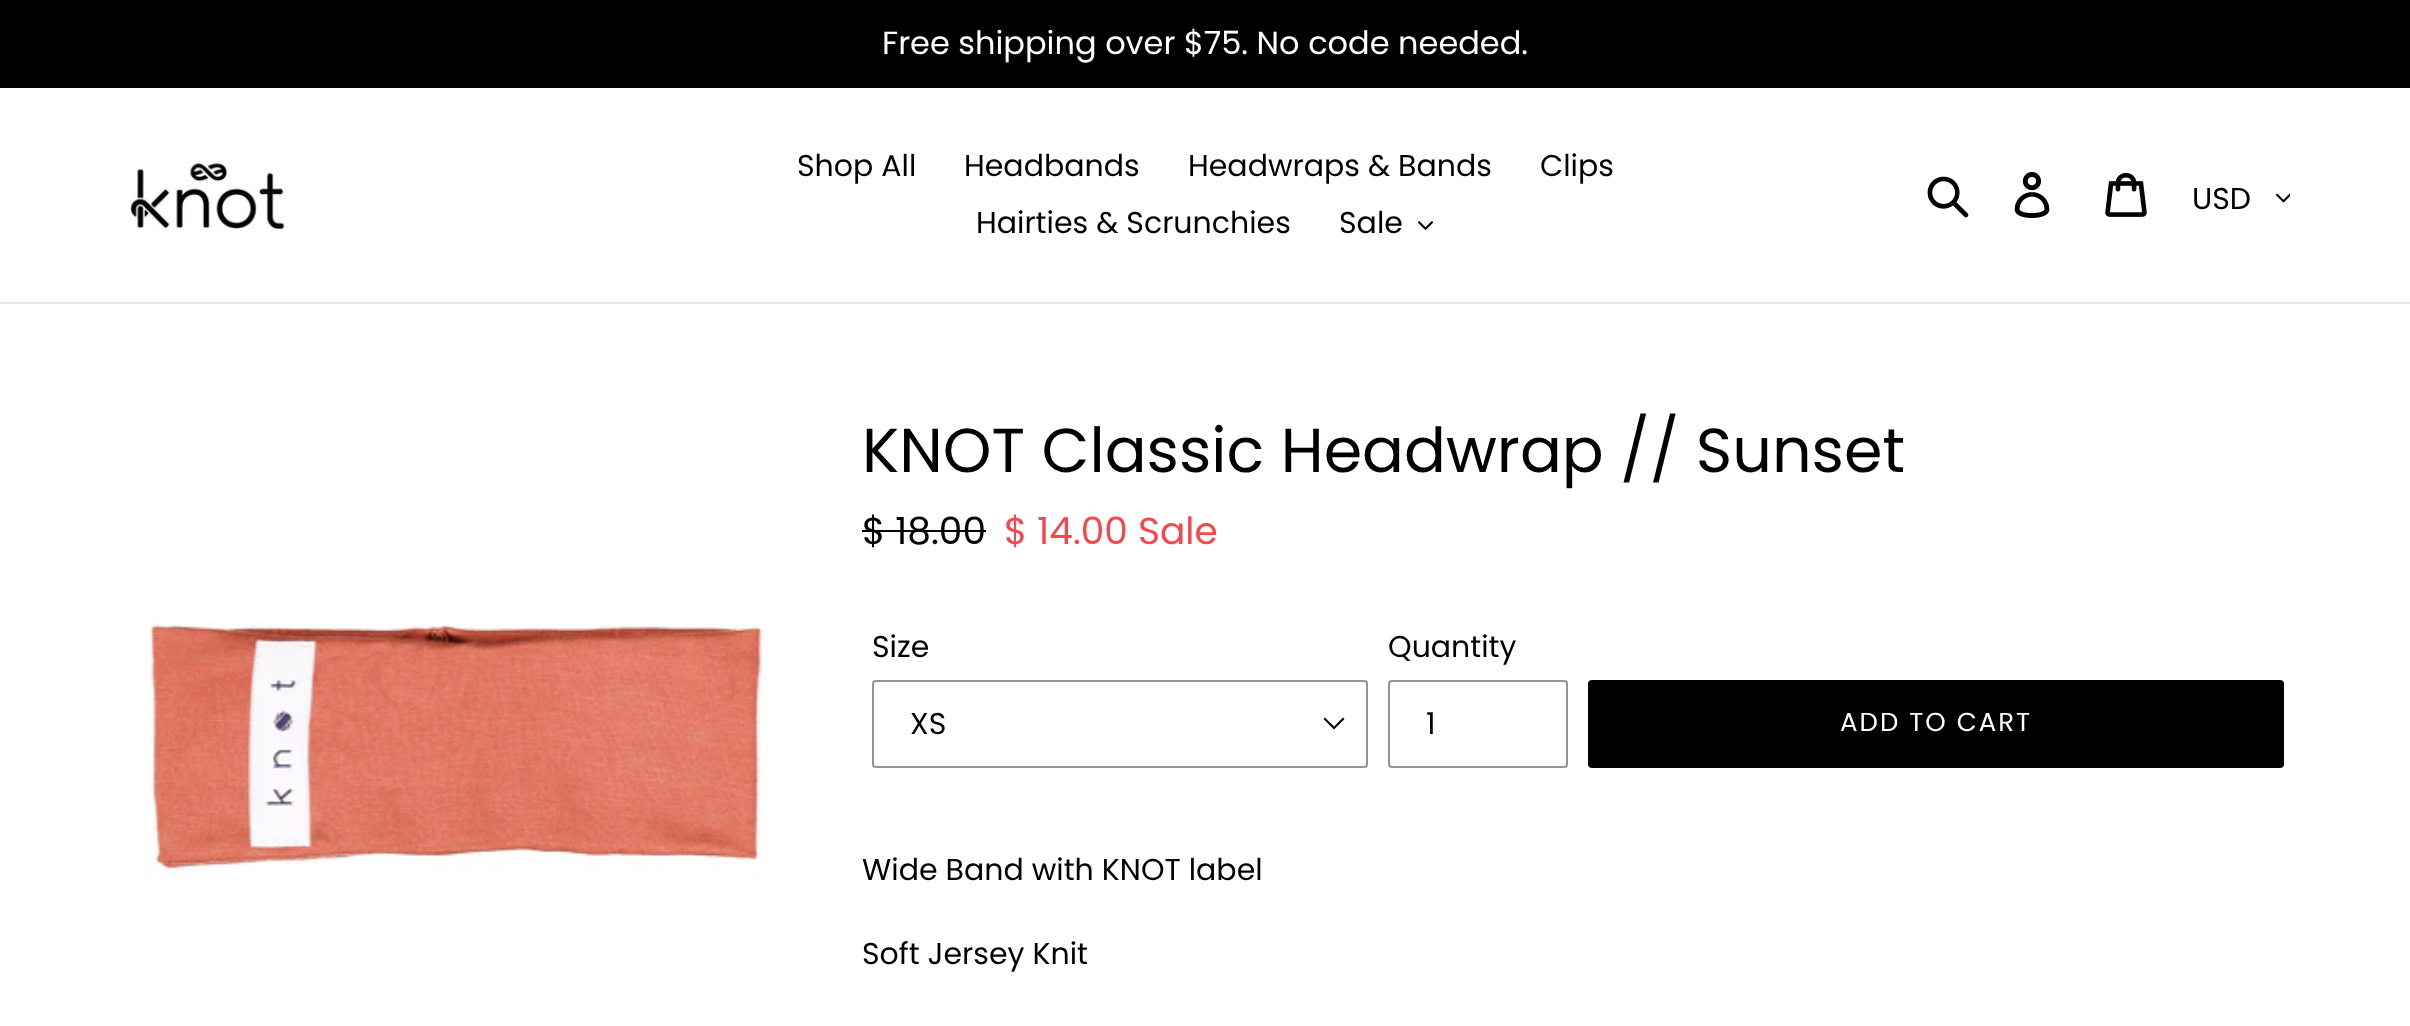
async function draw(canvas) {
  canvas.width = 2410
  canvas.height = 1026
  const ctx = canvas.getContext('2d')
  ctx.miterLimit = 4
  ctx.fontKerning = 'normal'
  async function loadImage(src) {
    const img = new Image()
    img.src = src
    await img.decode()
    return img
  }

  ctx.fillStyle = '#fff'
  ctx.fillRect(0, 0, 2410, 1026)
  ctx.fillStyle = '#000'
  ctx.fillRect(0, 0, 2410, 88)
  ctx.font = '32px Poppins'
  ctx.fillStyle = '#fff'
  ctx.fillText('Free shipping over $75. No code needed.', 882, 54)
  ctx.fillStyle = '#e8e9eb'
  ctx.fillRect(0, 302, 2410, 2)
  ctx.drawImage(await loadImage('image0.png'), 128, 160, 159, 70)
  ctx.font = '30px Poppins'
  ctx.fillStyle = '#000'
  ctx.fillText('Shop All', 797, 176)
  ctx.fillText('Headbands', 964, 176)
  ctx.fillText('Headwraps & Bands', 1188, 176)
  ctx.fillText('Clips', 1540, 176)
  ctx.fillText('Hairties & Scrunchies', 976, 233)
  ctx.fillText('Sale', 1339, 233)
  ctx.drawImage(await loadImage('image1.png'), 1418, 221, 15, 9)
  ctx.drawImage(await loadImage('image2.png'), 1927, 176, 42, 42)
  ctx.drawImage(await loadImage('image3.png'), 2014, 172, 36, 46)
  ctx.drawImage(await loadImage('image4.png'), 2105, 172, 42, 45)
  ctx.fillText('USD', 2192, 209)
  ctx.drawImage(await loadImage('image5.png'), 2276, 193, 14, 10)
  ctx.drawImage(await loadImage('image6.png'), 145, 622, 621, 255)
  ctx.font = '62px Poppins'
  ctx.fillText('KNOT Classic Headwrap // Sunset', 862, 472)
  ctx.font = '37.5px Poppins'
  ctx.fillText('$ 18.00', 862, 544)
  ctx.fillRect(862, 530, 124, 2)
  ctx.fillStyle = '#f7474e'
  ctx.fillText('$ 14.00 Sale', 1004, 544)
  ctx.font = '30px Poppins'
  ctx.fillStyle = '#000'
  ctx.fillText('Size', 872, 657)
  ctx.beginPath()
  ctx.moveTo(1334, 729.5)
  ctx.lineTo(1323.5, 719)
  ctx.lineTo(1325, 717.5)
  ctx.lineTo(1334, 726.5)
  ctx.lineTo(1343, 717.5)
  ctx.lineTo(1344.5, 719)
  ctx.closePath()
  ctx.fill()
  ctx.beginPath()
  ctx.roundRect(873, 681, 494, 86, 3)
  ctx.strokeStyle = '#949494'
  ctx.lineWidth = 2
  ctx.stroke()
  ctx.fillText('XS', 910, 734)
  ctx.fillText('Quantity', 1388, 657)
  ctx.beginPath()
  ctx.roundRect(1389, 681, 178, 86, 3)
  ctx.stroke()
  ctx.fillText('1', 1426, 734)
  ctx.beginPath()
  ctx.roundRect(1588, 680, 696, 88, 4)
  ctx.fill()
  ctx.letterSpacing = '2px'
  ctx.font = '26px Poppins'
  ctx.fillStyle = '#fff'
  ctx.fillText('ADD TO CART', 1840, 731)
  ctx.letterSpacing = '0px'
  ctx.font = '30px Poppins'
  ctx.fillStyle = '#000'
  ctx.fillText('Wide Band with KNOT label', 862, 880)
  ctx.fillText('Soft Jersey Knit', 862, 964)
}

draw(document.querySelector('canvas'))
